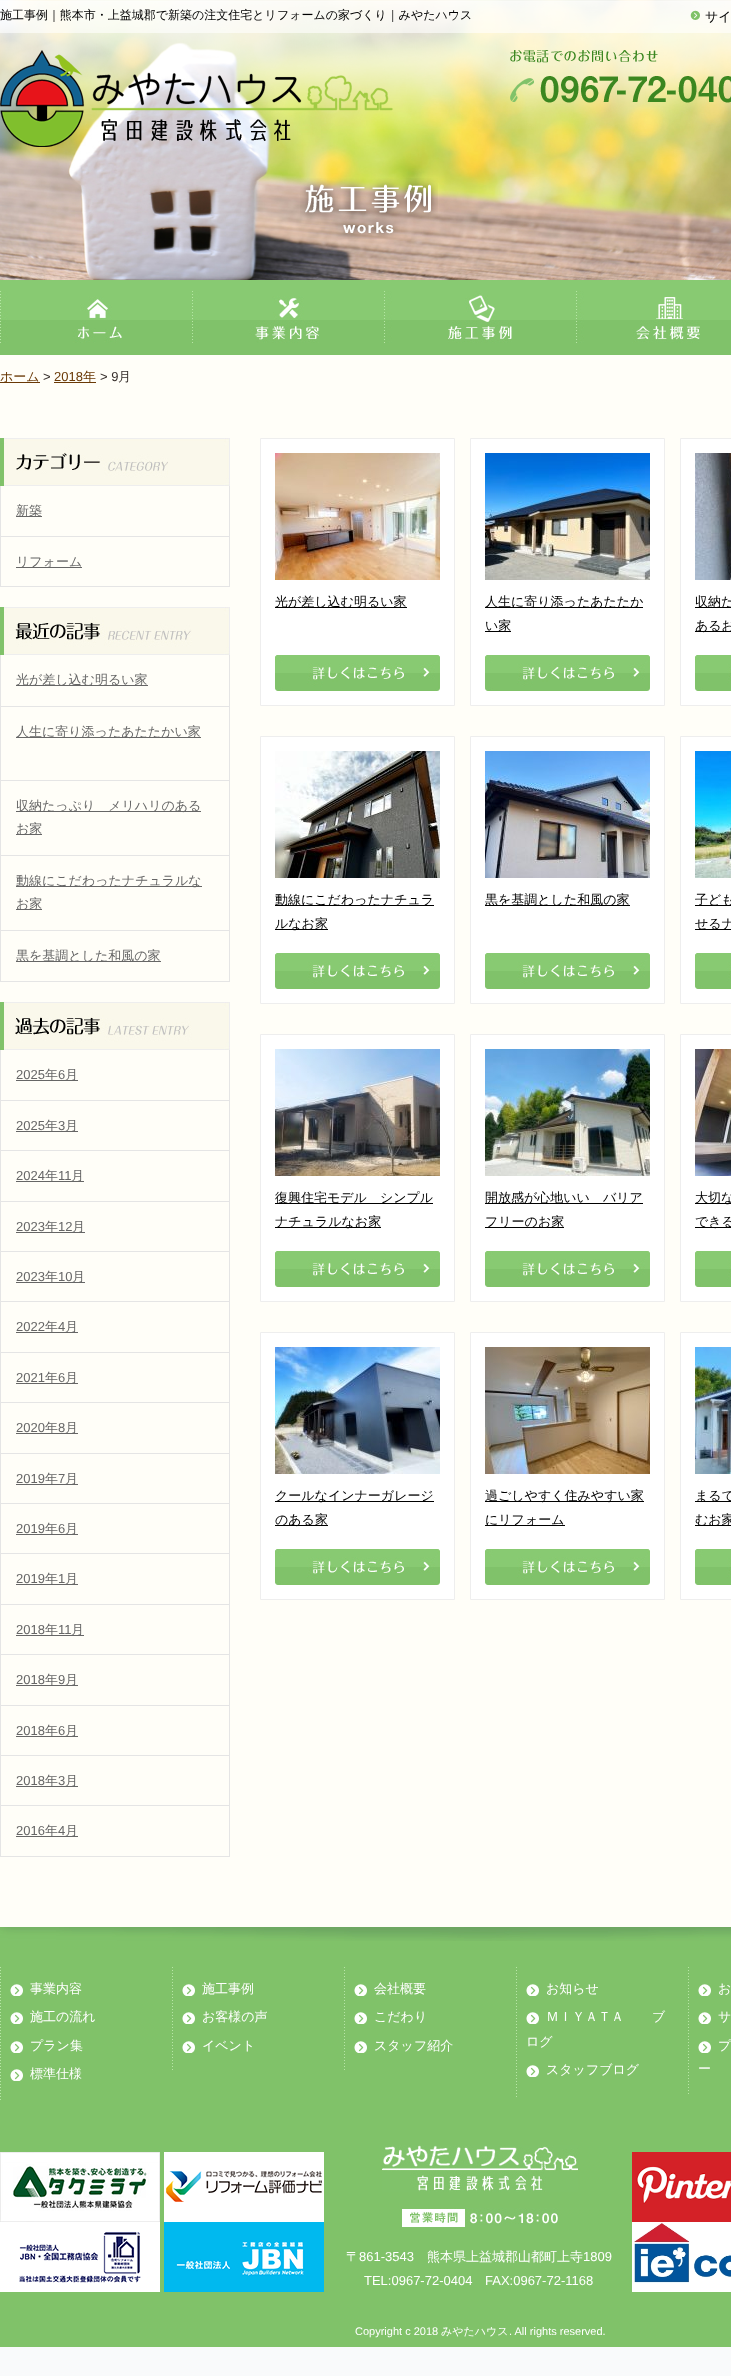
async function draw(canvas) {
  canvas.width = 731
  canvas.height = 2376
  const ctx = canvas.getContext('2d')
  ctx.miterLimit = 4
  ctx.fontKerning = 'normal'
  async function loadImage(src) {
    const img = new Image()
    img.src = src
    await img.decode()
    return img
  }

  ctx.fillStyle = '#f9fafb'
  ctx.fillRect(0, 0, 731, 2376)
  ctx.drawImage(await loadImage('image0.png'), 0, 0, 731, 280)
  ctx.drawImage(await loadImage('image1.png'), 300, 178, 138, 61)
  ctx.drawImage(await loadImage('image2.png'), 0, 0, 731, 129)
  ctx.font = '500 12px WenQuanYi Zen Hei'
  ctx.fillStyle = '#000'
  ctx.fillText('施工事例｜熊本市・上益城郡で新築の注文住宅とリフォームの家づくり｜みやたハウス', 0, 19)
  ctx.drawImage(await loadImage('image3.png'), 690, 10, 10, 10)
  ctx.font = '500 13px WenQuanYi Zen Hei'
  ctx.fillText('サイ', 705, 21)
  ctx.drawImage(await loadImage('image4.png'), 0, 50, 393, 97)
  ctx.drawImage(await loadImage('image5.png'), 510, 50, 148, 13)
  ctx.drawImage(await loadImage('image6.png'), 510, 76, 221, 27)
  ctx.drawImage(await loadImage('image7.png'), 0, 280, 731, 75)
  ctx.drawImage(await loadImage('image8.png'), 0, 291, 122, 52)
  ctx.drawImage(await loadImage('image9.png'), 192, 291, 127, 52)
  ctx.drawImage(await loadImage('image10.png'), 384, 291, 128, 52)
  ctx.drawImage(await loadImage('image11.png'), 576, 291, 124, 52)
  ctx.fillStyle = '#fffef8'
  ctx.fillRect(0, 355, 731, 1572)
  ctx.fillStyle = '#6a3906'
  ctx.fillRect(0, 382, 40, 1)
  ctx.fillText('ホーム', 0, 381)
  ctx.font = '13px Liberation Sans'
  ctx.fillStyle = '#362e2b'
  ctx.fillText('>', 43, 381)
  ctx.fillStyle = '#6a3906'
  ctx.fillText('2018', 54, 381)
  ctx.fillRect(54, 382, 42, 1)
  ctx.font = '500 13px WenQuanYi Zen Hei'
  ctx.fillText('年', 83, 381)
  ctx.font = '13px Liberation Sans'
  ctx.fillStyle = '#362e2b'
  ctx.fillText('> 9', 100, 381)
  ctx.font = '500 13px WenQuanYi Zen Hei'
  ctx.fillText('月', 118, 381)
  ctx.drawImage(await loadImage('image12.png'), 0, 438, 230, 48)
  ctx.fillStyle = '#e5e5e5'
  ctx.fillRect(229, 486, 1, 101)
  ctx.fillRect(0, 536, 230, 1)
  ctx.fillRect(0, 486, 1, 51)
  ctx.fillStyle = '#666'
  ctx.fillRect(16, 516, 26, 1)
  ctx.fillText('新築', 16, 515)
  ctx.fillStyle = '#e5e5e5'
  ctx.fillRect(0, 586, 230, 1)
  ctx.fillRect(0, 537, 1, 50)
  ctx.fillStyle = '#666'
  ctx.fillRect(16, 567, 66, 1)
  ctx.fillText('リフォーム', 16, 566)
  ctx.drawImage(await loadImage('image13.png'), 0, 607, 230, 48)
  ctx.fillStyle = '#e5e5e5'
  ctx.fillRect(229, 655, 1, 327)
  ctx.fillRect(0, 706, 230, 1)
  ctx.fillRect(0, 655, 1, 52)
  ctx.fillStyle = '#666'
  ctx.fillRect(16, 685, 132, 1)
  ctx.fillText('光が差し込む明るい家', 16, 684)
  ctx.fillStyle = '#e5e5e5'
  ctx.fillRect(0, 780, 230, 1)
  ctx.fillRect(0, 707, 1, 74)
  ctx.fillStyle = '#666'
  ctx.fillRect(16, 737, 185, 1)
  ctx.fillText('人生に寄り添ったあたたかい家', 16, 736)
  ctx.fillStyle = '#e5e5e5'
  ctx.fillRect(0, 855, 230, 1)
  ctx.fillRect(0, 781, 1, 75)
  ctx.fillStyle = '#666'
  ctx.fillRect(16, 811, 185, 1)
  ctx.fillText('収納たっぷり　メリハリのある', 16, 810)
  ctx.fillRect(16, 834, 26, 1)
  ctx.fillText('お家', 16, 833)
  ctx.fillStyle = '#e5e5e5'
  ctx.fillRect(0, 930, 230, 1)
  ctx.fillRect(0, 856, 1, 75)
  ctx.fillStyle = '#666'
  ctx.fillRect(16, 886, 186, 1)
  ctx.fillText('動線にこだわったナチュラルな', 16, 885)
  ctx.fillRect(16, 909, 26, 1)
  ctx.fillText('お家', 16, 908)
  ctx.fillStyle = '#e5e5e5'
  ctx.fillRect(0, 981, 230, 1)
  ctx.fillRect(0, 931, 1, 51)
  ctx.fillStyle = '#666'
  ctx.fillRect(16, 961, 145, 1)
  ctx.fillText('黒を基調とした和風の家', 16, 960)
  ctx.drawImage(await loadImage('image14.png'), 0, 1002, 230, 48)
  ctx.fillStyle = '#e5e5e5'
  ctx.fillRect(229, 1050, 1, 807)
  ctx.fillRect(0, 1100, 230, 1)
  ctx.fillRect(0, 1050, 1, 51)
  ctx.font = '13px Liberation Sans'
  ctx.fillStyle = '#666'
  ctx.fillText('2025', 16, 1079)
  ctx.fillRect(16, 1080, 62, 1)
  ctx.font = '500 13px WenQuanYi Zen Hei'
  ctx.fillText('年', 45, 1079)
  ctx.font = '13px Liberation Sans'
  ctx.fillText('6', 58, 1079)
  ctx.font = '500 13px WenQuanYi Zen Hei'
  ctx.fillText('月', 65, 1079)
  ctx.fillStyle = '#e5e5e5'
  ctx.fillRect(0, 1150, 230, 1)
  ctx.fillRect(0, 1101, 1, 50)
  ctx.font = '13px Liberation Sans'
  ctx.fillStyle = '#666'
  ctx.fillText('2025', 16, 1130)
  ctx.fillRect(16, 1131, 62, 1)
  ctx.font = '500 13px WenQuanYi Zen Hei'
  ctx.fillText('年', 45, 1130)
  ctx.font = '13px Liberation Sans'
  ctx.fillText('3', 58, 1130)
  ctx.font = '500 13px WenQuanYi Zen Hei'
  ctx.fillText('月', 65, 1130)
  ctx.fillStyle = '#e5e5e5'
  ctx.fillRect(0, 1201, 230, 1)
  ctx.fillRect(0, 1151, 1, 51)
  ctx.font = '13px Liberation Sans'
  ctx.fillStyle = '#666'
  ctx.fillText('2024', 16, 1180)
  ctx.fillRect(16, 1181, 68, 1)
  ctx.font = '500 13px WenQuanYi Zen Hei'
  ctx.fillText('年', 45, 1180)
  ctx.font = '13px Liberation Sans'
  ctx.fillText('11', 58, 1180)
  ctx.font = '500 13px WenQuanYi Zen Hei'
  ctx.fillText('月', 71, 1180)
  ctx.fillStyle = '#e5e5e5'
  ctx.fillRect(0, 1251, 230, 1)
  ctx.fillRect(0, 1202, 1, 50)
  ctx.font = '13px Liberation Sans'
  ctx.fillStyle = '#666'
  ctx.fillText('2023', 16, 1231)
  ctx.fillRect(16, 1232, 69, 1)
  ctx.font = '500 13px WenQuanYi Zen Hei'
  ctx.fillText('年', 45, 1231)
  ctx.font = '13px Liberation Sans'
  ctx.fillText('12', 58, 1231)
  ctx.font = '500 13px WenQuanYi Zen Hei'
  ctx.fillText('月', 72, 1231)
  ctx.fillStyle = '#e5e5e5'
  ctx.fillRect(0, 1301, 230, 1)
  ctx.fillRect(0, 1252, 1, 50)
  ctx.font = '13px Liberation Sans'
  ctx.fillStyle = '#666'
  ctx.fillText('2023', 16, 1281)
  ctx.fillRect(16, 1282, 69, 1)
  ctx.font = '500 13px WenQuanYi Zen Hei'
  ctx.fillText('年', 45, 1281)
  ctx.font = '13px Liberation Sans'
  ctx.fillText('10', 58, 1281)
  ctx.font = '500 13px WenQuanYi Zen Hei'
  ctx.fillText('月', 72, 1281)
  ctx.fillStyle = '#e5e5e5'
  ctx.fillRect(0, 1352, 230, 1)
  ctx.fillRect(0, 1302, 1, 51)
  ctx.font = '13px Liberation Sans'
  ctx.fillStyle = '#666'
  ctx.fillText('2022', 16, 1331)
  ctx.fillRect(16, 1332, 62, 1)
  ctx.font = '500 13px WenQuanYi Zen Hei'
  ctx.fillText('年', 45, 1331)
  ctx.font = '13px Liberation Sans'
  ctx.fillText('4', 58, 1331)
  ctx.font = '500 13px WenQuanYi Zen Hei'
  ctx.fillText('月', 65, 1331)
  ctx.fillStyle = '#e5e5e5'
  ctx.fillRect(0, 1402, 230, 1)
  ctx.fillRect(0, 1353, 1, 50)
  ctx.font = '13px Liberation Sans'
  ctx.fillStyle = '#666'
  ctx.fillText('2021', 16, 1382)
  ctx.fillRect(16, 1383, 62, 1)
  ctx.font = '500 13px WenQuanYi Zen Hei'
  ctx.fillText('年', 45, 1382)
  ctx.font = '13px Liberation Sans'
  ctx.fillText('6', 58, 1382)
  ctx.font = '500 13px WenQuanYi Zen Hei'
  ctx.fillText('月', 65, 1382)
  ctx.fillStyle = '#e5e5e5'
  ctx.fillRect(0, 1453, 230, 1)
  ctx.fillRect(0, 1403, 1, 51)
  ctx.font = '13px Liberation Sans'
  ctx.fillStyle = '#666'
  ctx.fillText('2020', 16, 1432)
  ctx.fillRect(16, 1433, 62, 1)
  ctx.font = '500 13px WenQuanYi Zen Hei'
  ctx.fillText('年', 45, 1432)
  ctx.font = '13px Liberation Sans'
  ctx.fillText('8', 58, 1432)
  ctx.font = '500 13px WenQuanYi Zen Hei'
  ctx.fillText('月', 65, 1432)
  ctx.fillStyle = '#e5e5e5'
  ctx.fillRect(0, 1503, 230, 1)
  ctx.fillRect(0, 1454, 1, 50)
  ctx.font = '13px Liberation Sans'
  ctx.fillStyle = '#666'
  ctx.fillText('2019', 16, 1483)
  ctx.fillRect(16, 1484, 62, 1)
  ctx.font = '500 13px WenQuanYi Zen Hei'
  ctx.fillText('年', 45, 1483)
  ctx.font = '13px Liberation Sans'
  ctx.fillText('7', 58, 1483)
  ctx.font = '500 13px WenQuanYi Zen Hei'
  ctx.fillText('月', 65, 1483)
  ctx.fillStyle = '#e5e5e5'
  ctx.fillRect(0, 1553, 230, 1)
  ctx.fillRect(0, 1504, 1, 50)
  ctx.font = '13px Liberation Sans'
  ctx.fillStyle = '#666'
  ctx.fillText('2019', 16, 1533)
  ctx.fillRect(16, 1534, 62, 1)
  ctx.font = '500 13px WenQuanYi Zen Hei'
  ctx.fillText('年', 45, 1533)
  ctx.font = '13px Liberation Sans'
  ctx.fillText('6', 58, 1533)
  ctx.font = '500 13px WenQuanYi Zen Hei'
  ctx.fillText('月', 65, 1533)
  ctx.fillStyle = '#e5e5e5'
  ctx.fillRect(0, 1604, 230, 1)
  ctx.fillRect(0, 1554, 1, 51)
  ctx.font = '13px Liberation Sans'
  ctx.fillStyle = '#666'
  ctx.fillText('2019', 16, 1583)
  ctx.fillRect(16, 1584, 62, 1)
  ctx.font = '500 13px WenQuanYi Zen Hei'
  ctx.fillText('年', 45, 1583)
  ctx.font = '13px Liberation Sans'
  ctx.fillText('1', 58, 1583)
  ctx.font = '500 13px WenQuanYi Zen Hei'
  ctx.fillText('月', 65, 1583)
  ctx.fillStyle = '#e5e5e5'
  ctx.fillRect(0, 1654, 230, 1)
  ctx.fillRect(0, 1605, 1, 50)
  ctx.font = '13px Liberation Sans'
  ctx.fillStyle = '#666'
  ctx.fillText('2018', 16, 1634)
  ctx.fillRect(16, 1635, 68, 1)
  ctx.font = '500 13px WenQuanYi Zen Hei'
  ctx.fillText('年', 45, 1634)
  ctx.font = '13px Liberation Sans'
  ctx.fillText('11', 58, 1634)
  ctx.font = '500 13px WenQuanYi Zen Hei'
  ctx.fillText('月', 71, 1634)
  ctx.fillStyle = '#e5e5e5'
  ctx.fillRect(0, 1705, 230, 1)
  ctx.fillRect(0, 1655, 1, 51)
  ctx.font = '13px Liberation Sans'
  ctx.fillStyle = '#666'
  ctx.fillText('2018', 16, 1684)
  ctx.fillRect(16, 1685, 62, 1)
  ctx.font = '500 13px WenQuanYi Zen Hei'
  ctx.fillText('年', 45, 1684)
  ctx.font = '13px Liberation Sans'
  ctx.fillText('9', 58, 1684)
  ctx.font = '500 13px WenQuanYi Zen Hei'
  ctx.fillText('月', 65, 1684)
  ctx.fillStyle = '#e5e5e5'
  ctx.fillRect(0, 1755, 230, 1)
  ctx.fillRect(0, 1706, 1, 50)
  ctx.font = '13px Liberation Sans'
  ctx.fillStyle = '#666'
  ctx.fillText('2018', 16, 1735)
  ctx.fillRect(16, 1736, 62, 1)
  ctx.font = '500 13px WenQuanYi Zen Hei'
  ctx.fillText('年', 45, 1735)
  ctx.font = '13px Liberation Sans'
  ctx.fillText('6', 58, 1735)
  ctx.font = '500 13px WenQuanYi Zen Hei'
  ctx.fillText('月', 65, 1735)
  ctx.fillStyle = '#e5e5e5'
  ctx.fillRect(0, 1805, 230, 1)
  ctx.fillRect(0, 1756, 1, 50)
  ctx.font = '13px Liberation Sans'
  ctx.fillStyle = '#666'
  ctx.fillText('2018', 16, 1785)
  ctx.fillRect(16, 1786, 62, 1)
  ctx.font = '500 13px WenQuanYi Zen Hei'
  ctx.fillText('年', 45, 1785)
  ctx.font = '13px Liberation Sans'
  ctx.fillText('3', 58, 1785)
  ctx.font = '500 13px WenQuanYi Zen Hei'
  ctx.fillText('月', 65, 1785)
  ctx.fillStyle = '#e5e5e5'
  ctx.fillRect(0, 1856, 230, 1)
  ctx.fillRect(0, 1806, 1, 51)
  ctx.font = '13px Liberation Sans'
  ctx.fillStyle = '#666'
  ctx.fillText('2016', 16, 1835)
  ctx.fillRect(16, 1836, 62, 1)
  ctx.font = '500 13px WenQuanYi Zen Hei'
  ctx.fillText('年', 45, 1835)
  ctx.font = '13px Liberation Sans'
  ctx.fillText('4', 58, 1835)
  ctx.font = '500 13px WenQuanYi Zen Hei'
  ctx.fillText('月', 65, 1835)
  ctx.fillStyle = '#fff'
  ctx.beginPath()
  ctx.rect(260.5, 438.5, 194, 267)
  ctx.fill()
  ctx.strokeStyle = '#eee'
  ctx.stroke()
  ctx.drawImage(await loadImage('image15.png'), 275, 453, 165, 127)
  ctx.fillStyle = '#000'
  ctx.fillRect(275, 607, 132, 1)
  ctx.fillText('光が差し込む明るい家', 275, 606)
  ctx.drawImage(await loadImage('image16.png'), 275, 655, 165, 36)
  ctx.fillStyle = '#fff'
  ctx.beginPath()
  ctx.rect(470.5, 438.5, 194, 267)
  ctx.fill()
  ctx.stroke()
  ctx.drawImage(await loadImage('image17.png'), 485, 453, 165, 127)
  ctx.fillStyle = '#000'
  ctx.fillRect(485, 607, 158, 1)
  ctx.fillText('人生に寄り添ったあたたか', 485, 606)
  ctx.fillRect(485, 631, 26, 1)
  ctx.fillText('い家', 485, 630)
  ctx.drawImage(await loadImage('image16.png'), 485, 655, 165, 36)
  ctx.fillStyle = '#fff'
  ctx.beginPath()
  ctx.rect(680.5, 438.5, 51, 267)
  ctx.fill()
  ctx.stroke()
  ctx.drawImage(await loadImage('image18.png'), 695, 453, 36, 127)
  ctx.fillStyle = '#000'
  ctx.fillRect(695, 607, 36, 1)
  ctx.fillText('収納た', 695, 606)
  ctx.fillRect(695, 631, 36, 1)
  ctx.fillText('あるお', 695, 630)
  ctx.drawImage(await loadImage('image19.png'), 695, 655, 36, 36)
  ctx.fillStyle = '#fff'
  ctx.beginPath()
  ctx.rect(260.5, 736.5, 194, 267)
  ctx.fill()
  ctx.stroke()
  ctx.drawImage(await loadImage('image20.png'), 275, 751, 165, 127)
  ctx.fillStyle = '#000'
  ctx.fillRect(275, 905, 159, 1)
  ctx.fillText('動線にこだわったナチュラ', 275, 904)
  ctx.fillRect(275, 929, 53, 1)
  ctx.fillText('ルなお家', 275, 928)
  ctx.drawImage(await loadImage('image16.png'), 275, 953, 165, 36)
  ctx.fillStyle = '#fff'
  ctx.beginPath()
  ctx.rect(470.5, 736.5, 194, 267)
  ctx.fill()
  ctx.stroke()
  ctx.drawImage(await loadImage('image21.png'), 485, 751, 165, 127)
  ctx.fillStyle = '#000'
  ctx.fillRect(485, 905, 145, 1)
  ctx.fillText('黒を基調とした和風の家', 485, 904)
  ctx.drawImage(await loadImage('image16.png'), 485, 953, 165, 36)
  ctx.fillStyle = '#fff'
  ctx.beginPath()
  ctx.rect(680.5, 736.5, 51, 267)
  ctx.fill()
  ctx.stroke()
  ctx.drawImage(await loadImage('image22.png'), 695, 751, 36, 127)
  ctx.fillStyle = '#000'
  ctx.fillRect(695, 905, 36, 1)
  ctx.fillText('子ども', 695, 904)
  ctx.fillRect(695, 929, 36, 1)
  ctx.fillText('せるナ', 695, 928)
  ctx.drawImage(await loadImage('image19.png'), 695, 953, 36, 36)
  ctx.fillStyle = '#fff'
  ctx.beginPath()
  ctx.rect(260.5, 1034.5, 194, 267)
  ctx.fill()
  ctx.stroke()
  ctx.drawImage(await loadImage('image23.png'), 275, 1049, 165, 127)
  ctx.fillStyle = '#000'
  ctx.fillRect(275, 1203, 158, 1)
  ctx.fillText('復興住宅モデル　シンプル', 275, 1202)
  ctx.fillRect(275, 1227, 106, 1)
  ctx.fillText('ナチュラルなお家', 275, 1226)
  ctx.drawImage(await loadImage('image16.png'), 275, 1251, 165, 36)
  ctx.fillStyle = '#fff'
  ctx.beginPath()
  ctx.rect(470.5, 1034.5, 194, 267)
  ctx.fill()
  ctx.stroke()
  ctx.drawImage(await loadImage('image24.png'), 485, 1049, 165, 127)
  ctx.fillStyle = '#000'
  ctx.fillRect(485, 1203, 158, 1)
  ctx.fillText('開放感が心地いい　バリア', 485, 1202)
  ctx.fillRect(485, 1227, 79, 1)
  ctx.fillText('フリーのお家', 485, 1226)
  ctx.drawImage(await loadImage('image16.png'), 485, 1251, 165, 36)
  ctx.fillStyle = '#fff'
  ctx.beginPath()
  ctx.rect(680.5, 1034.5, 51, 267)
  ctx.fill()
  ctx.stroke()
  ctx.drawImage(await loadImage('image25.png'), 695, 1049, 36, 127)
  ctx.fillStyle = '#000'
  ctx.fillRect(695, 1203, 36, 1)
  ctx.fillText('大切な', 695, 1202)
  ctx.fillRect(695, 1227, 36, 1)
  ctx.fillText('できる', 695, 1226)
  ctx.drawImage(await loadImage('image19.png'), 695, 1251, 36, 36)
  ctx.fillStyle = '#fff'
  ctx.beginPath()
  ctx.rect(260.5, 1332.5, 194, 267)
  ctx.fill()
  ctx.stroke()
  ctx.drawImage(await loadImage('image26.png'), 275, 1347, 165, 127)
  ctx.fillStyle = '#000'
  ctx.fillRect(275, 1501, 159, 1)
  ctx.fillText('クールなインナーガレージ', 275, 1500)
  ctx.fillRect(275, 1525, 53, 1)
  ctx.fillText('のある家', 275, 1524)
  ctx.drawImage(await loadImage('image16.png'), 275, 1549, 165, 36)
  ctx.fillStyle = '#fff'
  ctx.beginPath()
  ctx.rect(470.5, 1332.5, 194, 267)
  ctx.fill()
  ctx.stroke()
  ctx.drawImage(await loadImage('image27.png'), 485, 1347, 165, 127)
  ctx.fillStyle = '#000'
  ctx.fillRect(485, 1501, 159, 1)
  ctx.fillText('過ごしやすく住みやすい家', 485, 1500)
  ctx.fillRect(485, 1525, 80, 1)
  ctx.fillText('にリフォーム', 485, 1524)
  ctx.drawImage(await loadImage('image16.png'), 485, 1549, 165, 36)
  ctx.fillStyle = '#fff'
  ctx.beginPath()
  ctx.rect(680.5, 1332.5, 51, 267)
  ctx.fill()
  ctx.stroke()
  ctx.drawImage(await loadImage('image28.png'), 695, 1347, 36, 127)
  ctx.fillStyle = '#000'
  ctx.fillRect(695, 1501, 36, 1)
  ctx.fillText('まるで', 695, 1500)
  ctx.fillRect(695, 1525, 36, 1)
  ctx.fillText('むお家', 695, 1524)
  ctx.drawImage(await loadImage('image19.png'), 695, 1549, 36, 36)
  ctx.fillStyle = '#80c269'
  ctx.fillRect(0, 1941, 731, 406)
  ctx.drawImage(await loadImage('image29.png'), 0, 1927, 731, 14)
  ctx.drawImage(await loadImage('image30.png'), 0, 1967, 1, 133)
  ctx.drawImage(await loadImage('image31.png'), 10, 1984, 13, 12)
  ctx.fillStyle = '#fff'
  ctx.fillText('事業内容', 30, 1993)
  ctx.drawImage(await loadImage('image31.png'), 10, 2012, 13, 12)
  ctx.fillText('施工の流れ', 30, 2021)
  ctx.drawImage(await loadImage('image31.png'), 10, 2041, 13, 12)
  ctx.fillText('プラン集', 30, 2050)
  ctx.drawImage(await loadImage('image31.png'), 10, 2069, 13, 12)
  ctx.fillText('標準仕様', 30, 2078)
  ctx.drawImage(await loadImage('image32.png'), 172, 1967, 1, 103)
  ctx.drawImage(await loadImage('image31.png'), 182, 1984, 13, 12)
  ctx.fillText('施工事例', 202, 1993)
  ctx.drawImage(await loadImage('image31.png'), 182, 2012, 13, 12)
  ctx.fillText('お客様の声', 202, 2021)
  ctx.drawImage(await loadImage('image31.png'), 182, 2041, 13, 12)
  ctx.fillText('イベント', 202, 2050)
  ctx.drawImage(await loadImage('image32.png'), 344, 1967, 1, 103)
  ctx.drawImage(await loadImage('image31.png'), 354, 1984, 13, 12)
  ctx.fillText('会社概要', 374, 1993)
  ctx.drawImage(await loadImage('image31.png'), 354, 2012, 13, 12)
  ctx.fillText('こだわり', 374, 2021)
  ctx.drawImage(await loadImage('image31.png'), 354, 2041, 13, 12)
  ctx.fillText('スタッフ紹介', 374, 2050)
  ctx.drawImage(await loadImage('image33.png'), 516, 1967, 1, 130)
  ctx.drawImage(await loadImage('image31.png'), 526, 1984, 13, 12)
  ctx.fillText('お知らせ', 546, 1993)
  ctx.drawImage(await loadImage('image31.png'), 526, 2012, 13, 12)
  ctx.fillText('ＭＩＹＡＴＡ', 546, 2021)
  ctx.fillText('ブ', 652, 2021)
  ctx.fillText('ログ', 526, 2046)
  ctx.drawImage(await loadImage('image31.png'), 526, 2065, 13, 12)
  ctx.fillText('スタッフブログ', 546, 2074)
  ctx.drawImage(await loadImage('image34.png'), 688, 1967, 1, 127)
  ctx.drawImage(await loadImage('image31.png'), 698, 1984, 13, 12)
  ctx.fillText('お', 718, 1993)
  ctx.drawImage(await loadImage('image31.png'), 698, 2012, 13, 12)
  ctx.fillText('サ', 718, 2021)
  ctx.drawImage(await loadImage('image31.png'), 698, 2041, 13, 12)
  ctx.fillText('プ', 718, 2050)
  ctx.fillText('ー', 698, 2073)
  ctx.drawImage(await loadImage('image35.png'), 0, 2152, 160, 70)
  ctx.drawImage(await loadImage('image36.png'), 164, 2152, 160, 70)
  ctx.drawImage(await loadImage('image37.png'), 0, 2222, 160, 70)
  ctx.drawImage(await loadImage('image38.png'), 164, 2222, 160, 70)
  ctx.drawImage(await loadImage('image39.png'), 382, 2145, 196, 47)
  ctx.drawImage(await loadImage('image40.png'), 402, 2208, 156, 20)
  ctx.fillText('〒', 346, 2261)
  ctx.font = '13px Liberation Sans'
  ctx.fillText('861-3543', 359, 2261)
  ctx.font = '500 13px WenQuanYi Zen Hei'
  ctx.fillText('熊本県上益城郡山都町上寺', 427, 2261)
  ctx.font = '13px Liberation Sans'
  ctx.fillText('1809', 583, 2261)
  ctx.fillText('TEL:0967-72-0404', 364, 2285)
  ctx.fillText('FAX:0967-72-1168', 485, 2285)
  ctx.drawImage(await loadImage('image41.png'), 632, 2152, 99, 70)
  ctx.drawImage(await loadImage('image42.png'), 632, 2222, 99, 70)
  ctx.font = '11px Liberation Sans'
  ctx.fillText('Copyright c 2018', 355, 2335)
  ctx.font = '500 11px WenQuanYi Zen Hei'
  ctx.fillText('みやたハウス', 441, 2335)
  ctx.font = '11px Liberation Sans'
  ctx.fillText('. All rights reserved.', 509, 2335)
}

draw(document.querySelector('canvas'))
